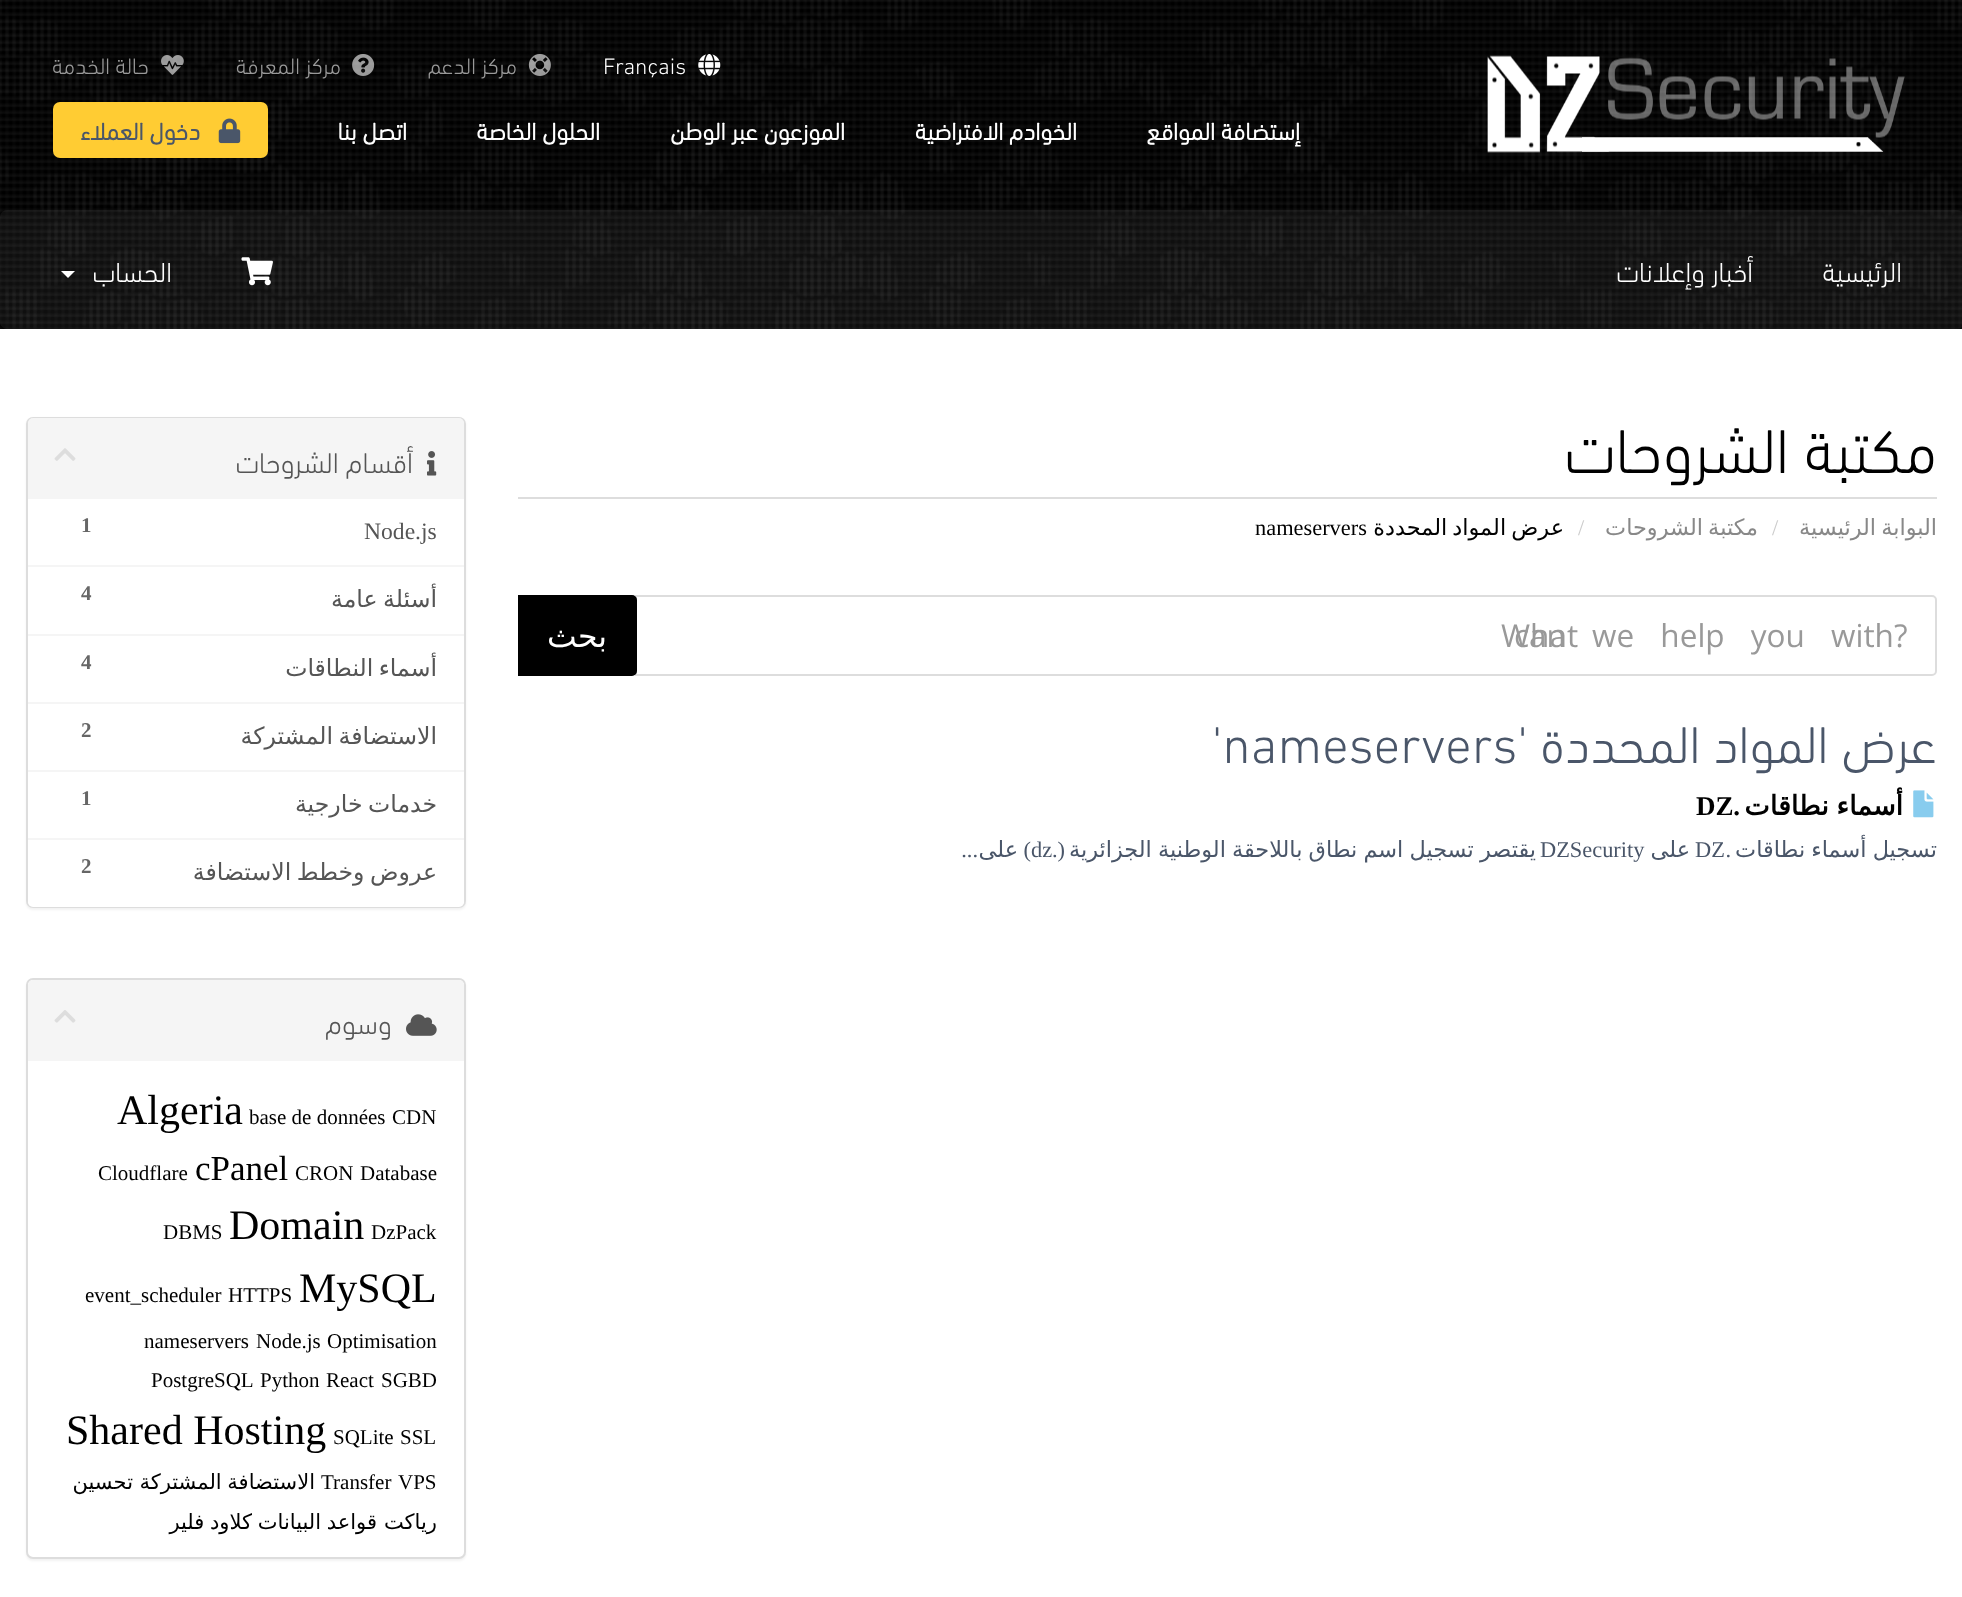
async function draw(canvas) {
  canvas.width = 1962
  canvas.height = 1597
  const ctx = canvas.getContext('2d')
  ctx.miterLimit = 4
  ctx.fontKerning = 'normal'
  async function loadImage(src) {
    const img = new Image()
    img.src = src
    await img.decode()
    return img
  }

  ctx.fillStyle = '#fff'
  ctx.fillRect(0, 0, 1962, 1597)
  ctx.drawImage(await loadImage('image0.png'), 0, 0, 1962, 329)
  ctx.drawImage(await loadImage('image1.png'), 0, 0, 1961, 1)
  ctx.drawImage(await loadImage('image3.png'), 1487, 55, 123, 98)
  ctx.drawImage(await loadImage('image2.png'), 1608, 57, 297, 81)
  ctx.drawImage(await loadImage('image4.png'), 1582, 137, 302, 15)
  ctx.drawImage(await loadImage('image5.png'), 698, 54, 23, 22)
  ctx.font = '300 22.75px "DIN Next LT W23"'
  ctx.fillText('Français', 603, 74)
  ctx.drawImage(await loadImage('image6.png'), 528, 54, 23, 22)
  ctx.direction = 'rtl'
  ctx.fillStyle = '#999'
  ctx.fillText('مركز الدعم', 517, 74)
  ctx.drawImage(await loadImage('image7.png'), 352, 54, 23, 22)
  ctx.fillText('مركز المعرفة', 341, 74)
  ctx.drawImage(await loadImage('image8.png'), 161, 55, 23, 20)
  ctx.fillText('حالة الخدمة', 149, 74)
  ctx.font = 'bold 24.5px "DIN Next LT W23"'
  ctx.fillStyle = '#fff'
  ctx.fillText('إستضافة المواقع', 1300, 140)
  ctx.fillText('الخوادم الافتراضية', 1077, 140)
  ctx.fillText('الموزعون عبر الوطن', 845, 140)
  ctx.fillText('الحلول الخاصة', 600, 140)
  ctx.fillText('اتصل بنا', 407, 140)
  ctx.fillStyle = '#fc3'
  ctx.beginPath()
  ctx.roundRect(53, 102, 215, 56, 7)
  ctx.fill()
  ctx.drawImage(await loadImage('image9.png'), 218, 118, 23, 26)
  ctx.fillStyle = '#4a5669'
  ctx.fillText('دخول العملاء', 200, 140)
  ctx.fillStyle = '#9696961a'
  ctx.beginPath()
  ctx.roundRect(0, 210, 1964, 119, 7)
  ctx.fill()
  ctx.font = '300 28px "DIN Next LT W23"'
  ctx.fillStyle = '#fff'
  ctx.fillText('الرئيسية', 1902, 282)
  ctx.fillText('أخبار وإعلانات', 1753, 282)
  ctx.drawImage(await loadImage('image10.png'), 241, 257, 32, 29)
  ctx.fillText('الحساب', 172, 282)
  ctx.beginPath()
  ctx.moveTo(61, 271)
  ctx.lineTo(75, 271)
  ctx.lineTo(68, 278)
  ctx.closePath()
  ctx.fill()
  ctx.fillStyle = '#ddd'
  ctx.fillRect(518, 497, 1419, 2)
  ctx.font = '300 63px "DIN Next LT W23"'
  ctx.fillStyle = '#000'
  ctx.fillText('مكتبة الشروحات', 1937, 473)
  ctx.wordSpacing = '-2px'
  ctx.font = '22.4px DejaVu Sans'
  ctx.fillStyle = '#888'
  ctx.fillText('البوابة الرئيسية', 1937, 535)
  ctx.wordSpacing = '0px'
  ctx.direction = 'ltr'
  ctx.font = '22.4px Liberation Serif'
  ctx.fillStyle = '#ccc'
  ctx.fillText('/', 1772, 535)
  ctx.wordSpacing = '-2px'
  ctx.direction = 'rtl'
  ctx.font = '22.4px DejaVu Sans'
  ctx.fillStyle = '#888'
  ctx.fillText('مكتبة الشروحات', 1758, 535)
  ctx.wordSpacing = '0px'
  ctx.direction = 'ltr'
  ctx.font = '22.4px Liberation Serif'
  ctx.fillStyle = '#ccc'
  ctx.fillText('/', 1578, 535)
  ctx.wordSpacing = '-2px'
  ctx.direction = 'rtl'
  ctx.font = '22.4px DejaVu Sans'
  ctx.fillStyle = '#000'
  ctx.fillText('عرض المواد المحددة', 1564, 535)
  ctx.wordSpacing = '0px'
  ctx.direction = 'ltr'
  ctx.font = '22.4px Liberation Serif'
  ctx.fillText('nameservers', 1255, 535)
  ctx.fillStyle = '#0000000d'
  ctx.filter = 'blur(1px)'
  ctx.beginPath()
  ctx.roundRect(26, 418, 440, 492, 7)
  ctx.fill()
  ctx.filter = 'none'
  ctx.fillStyle = '#fff'
  ctx.beginPath()
  ctx.roundRect(27, 418, 438, 489, 6)
  ctx.fill()
  ctx.strokeStyle = '#ddd'
  ctx.lineWidth = 2
  ctx.stroke()
  ctx.fillStyle = '#f5f5f5'
  ctx.beginPath()
  ctx.roundRect(28, 418, 436, 81, [5, 5, 0, 0])
  ctx.fill()
  ctx.drawImage(await loadImage('image11.png'), 427, 451, 10, 25)
  ctx.direction = 'rtl'
  ctx.font = '300 29px "DIN Next LT W23"'
  ctx.fillStyle = '#555'
  ctx.fillText('أقسام الشروحات', 413, 473)
  ctx.drawImage(await loadImage('image12.png'), 54, 448, 22, 13)
  ctx.fillStyle = '#f5f5f5'
  ctx.fillRect(28, 565, 436, 2)
  ctx.direction = 'ltr'
  ctx.font = '23.6px Liberation Serif'
  ctx.fillStyle = '#555'
  ctx.fillText('Node.js', 364, 539)
  ctx.font = 'bold 21px Liberation Serif'
  ctx.fillStyle = '#666'
  ctx.fillText('1', 81, 532)
  ctx.wordSpacing = '-2px'
  ctx.direction = 'rtl'
  ctx.font = '23.6px DejaVu Sans'
  ctx.fillStyle = '#555'
  ctx.fillText('أسئلة عامة', 437, 607)
  ctx.wordSpacing = '0px'
  ctx.direction = 'ltr'
  ctx.font = 'bold 21px Liberation Serif'
  ctx.fillStyle = '#666'
  ctx.fillText('4', 81, 600)
  ctx.fillStyle = '#f5f5f5'
  ctx.fillRect(28, 634, 436, 2)
  ctx.fillRect(28, 702, 436, 2)
  ctx.wordSpacing = '-2px'
  ctx.direction = 'rtl'
  ctx.font = '23.6px DejaVu Sans'
  ctx.fillStyle = '#555'
  ctx.fillText('أسماء النطاقات', 437, 676)
  ctx.wordSpacing = '0px'
  ctx.direction = 'ltr'
  ctx.font = 'bold 21px Liberation Serif'
  ctx.fillStyle = '#666'
  ctx.fillText('4', 81, 669)
  ctx.fillStyle = '#f5f5f5'
  ctx.fillRect(28, 770, 436, 2)
  ctx.wordSpacing = '-2px'
  ctx.direction = 'rtl'
  ctx.font = '23.6px DejaVu Sans'
  ctx.fillStyle = '#555'
  ctx.fillText('الاستضافة المشتركة', 437, 744)
  ctx.wordSpacing = '0px'
  ctx.direction = 'ltr'
  ctx.font = 'bold 21px Liberation Serif'
  ctx.fillStyle = '#666'
  ctx.fillText('2', 81, 737)
  ctx.wordSpacing = '-2px'
  ctx.direction = 'rtl'
  ctx.font = '23.6px DejaVu Sans'
  ctx.fillStyle = '#555'
  ctx.fillText('خدمات خارجية', 437, 812)
  ctx.wordSpacing = '0px'
  ctx.direction = 'ltr'
  ctx.font = 'bold 21px Liberation Serif'
  ctx.fillStyle = '#666'
  ctx.fillText('1', 81, 805)
  ctx.fillStyle = '#fff'
  ctx.beginPath()
  ctx.roundRect(28, 838, 436, 69, [0, 0, 5, 5])
  ctx.fill()
  ctx.fillStyle = '#f5f5f5'
  ctx.fillRect(28, 838, 436, 2)
  ctx.wordSpacing = '-2px'
  ctx.direction = 'rtl'
  ctx.font = '23.6px DejaVu Sans'
  ctx.fillStyle = '#555'
  ctx.fillText('عروض وخطط الاستضافة', 437, 880)
  ctx.wordSpacing = '0px'
  ctx.direction = 'ltr'
  ctx.font = 'bold 21px Liberation Serif'
  ctx.fillStyle = '#666'
  ctx.fillText('2', 81, 873)
  ctx.beginPath()
  ctx.roundRect(636, 596, 1300, 79, [0, 4, 4, 0])
  ctx.stroke()
  ctx.font = '31.5px Open Sans'
  ctx.fillStyle = '#999'
  ctx.fillText('What', 1501, 647)
  ctx.wordSpacing = '18px'
  ctx.fillText('can we help you with?', 1514, 647)
  ctx.fillStyle = '#000'
  ctx.beginPath()
  ctx.roundRect(519, 596, 117, 79, [0, 4, 4, 0])
  ctx.fill()
  ctx.strokeStyle = '#000'
  ctx.stroke()
  ctx.wordSpacing = '0px'
  ctx.direction = 'rtl'
  ctx.font = '31.5px DejaVu Sans'
  ctx.fillStyle = '#fff'
  ctx.fillText('بحث', 607, 647)
  ctx.font = '300 52.5px "DIN Next LT W23"'
  ctx.fillStyle = '#4a5669'
  ctx.fillText('عرض المواد المحددة \'', 1937, 763)
  ctx.direction = 'ltr'
  ctx.fillText('\'nameservers', 1212, 763)
  ctx.drawImage(await loadImage('image13.png'), 1913, 790, 21, 28)
  ctx.wordSpacing = '-1px'
  ctx.direction = 'rtl'
  ctx.font = 'bold 27px DejaVu Sans'
  ctx.fillStyle = '#000'
  ctx.fillText('أسماء نطاقات', 1903, 815)
  ctx.wordSpacing = '0px'
  ctx.font = 'bold 27px Liberation Serif'
  ctx.fillText('.', 1740, 815)
  ctx.direction = 'ltr'
  ctx.fillText('DZ', 1696, 815)
  ctx.wordSpacing = '-1px'
  ctx.direction = 'rtl'
  ctx.font = '22.4px DejaVu Sans'
  ctx.fillStyle = '#4a5669'
  ctx.fillText('تسجيل أسماء نطاقات', 1937, 857)
  ctx.wordSpacing = '0px'
  ctx.font = '22.4px Liberation Serif'
  ctx.fillText('.', 1731, 857)
  ctx.direction = 'ltr'
  ctx.fillText('DZ', 1695, 857)
  ctx.direction = 'rtl'
  ctx.font = '22.4px DejaVu Sans'
  ctx.fillText('على', 1690, 857)
  ctx.wordSpacing = '-1px'
  ctx.fillText('يقتصر تسجيل اسم نطاق باللاحقة الوطنية الجزائرية', 1536, 857)
  ctx.wordSpacing = '0px'
  ctx.direction = 'ltr'
  ctx.font = '22.4px Liberation Serif'
  ctx.fillText('DZSecurity', 1540, 857)
  ctx.direction = 'rtl'
  ctx.fillText('(.', 1065, 857)
  ctx.direction = 'ltr'
  ctx.fillText('dz', 1031, 857)
  ctx.direction = 'rtl'
  ctx.fillText(')', 1031, 857)
  ctx.font = '22.4px DejaVu Sans'
  ctx.fillText('على', 1018, 857)
  ctx.font = '22.4px Liberation Serif'
  ctx.fillText('...', 978, 857)
  ctx.fillStyle = '#0000000d'
  ctx.filter = 'blur(1px)'
  ctx.beginPath()
  ctx.roundRect(26, 980, 440, 581, 7)
  ctx.fill()
  ctx.filter = 'none'
  ctx.fillStyle = '#fff'
  ctx.beginPath()
  ctx.roundRect(27, 979, 438, 579, 6)
  ctx.fill()
  ctx.strokeStyle = '#ddd'
  ctx.stroke()
  ctx.fillStyle = '#f5f5f5'
  ctx.beginPath()
  ctx.roundRect(28, 980, 436, 81, [5, 5, 0, 0])
  ctx.fill()
  ctx.drawImage(await loadImage('image14.png'), 406, 1014, 31, 22)
  ctx.font = '300 29px "DIN Next LT W23"'
  ctx.fillStyle = '#555'
  ctx.fillText('وسوم', 392, 1034)
  ctx.drawImage(await loadImage('image15.png'), 54, 1010, 22, 13)
  ctx.direction = 'ltr'
  ctx.font = '21px Liberation Serif'
  ctx.fillStyle = '#000'
  ctx.fillText('CDN', 392, 1124)
  ctx.fillText('base de données', 249, 1124)
  ctx.font = '42px Liberation Serif'
  ctx.fillText('Algeria', 117, 1124)
  ctx.font = '21px Liberation Serif'
  ctx.fillText('Database', 360, 1180)
  ctx.fillText('CRON', 295, 1180)
  ctx.font = '35px Liberation Serif'
  ctx.fillText('cPanel', 195, 1180)
  ctx.font = '21px Liberation Serif'
  ctx.fillText('Cloudflare', 98, 1180)
  ctx.fillText('DzPack', 371, 1239)
  ctx.font = '42px Liberation Serif'
  ctx.fillText('Domain', 229, 1239)
  ctx.font = '21px Liberation Serif'
  ctx.fillText('DBMS', 163, 1239)
  ctx.font = '42px Liberation Serif'
  ctx.fillText('MySQL', 299, 1302)
  ctx.font = '21px Liberation Serif'
  ctx.fillText('HTTPS', 228, 1302)
  ctx.fillText('event_scheduler', 85, 1302)
  ctx.fillText('Optimisation', 327, 1348)
  ctx.fillText('Node.js', 256, 1348)
  ctx.fillText('nameservers', 144, 1348)
  ctx.fillText('SGBD', 381, 1387)
  ctx.fillText('React', 326, 1387)
  ctx.fillText('Python', 260, 1387)
  ctx.fillText('PostgreSQL', 151, 1387)
  ctx.fillText('SSL', 400, 1444)
  ctx.fillText('SQLite', 333, 1444)
  ctx.font = '42px Liberation Serif'
  ctx.fillText('Shared Hosting', 66, 1444)
  ctx.font = '21px Liberation Serif'
  ctx.fillText('VPS', 398, 1489)
  ctx.fillText('Transfer', 321, 1489)
  ctx.wordSpacing = '-1px'
  ctx.direction = 'rtl'
  ctx.font = '21px DejaVu Sans'
  ctx.fillText('الاستضافة المشتركة', 315, 1489)
  ctx.wordSpacing = '0px'
  ctx.fillText('تحسين', 133, 1489)
  ctx.fillText('رياكت', 437, 1529)
  ctx.wordSpacing = '-1px'
  ctx.fillText('قواعد البيانات', 377, 1529)
  ctx.fillText('كلاود فلير', 252, 1529)
}

draw(document.querySelector('canvas'))
